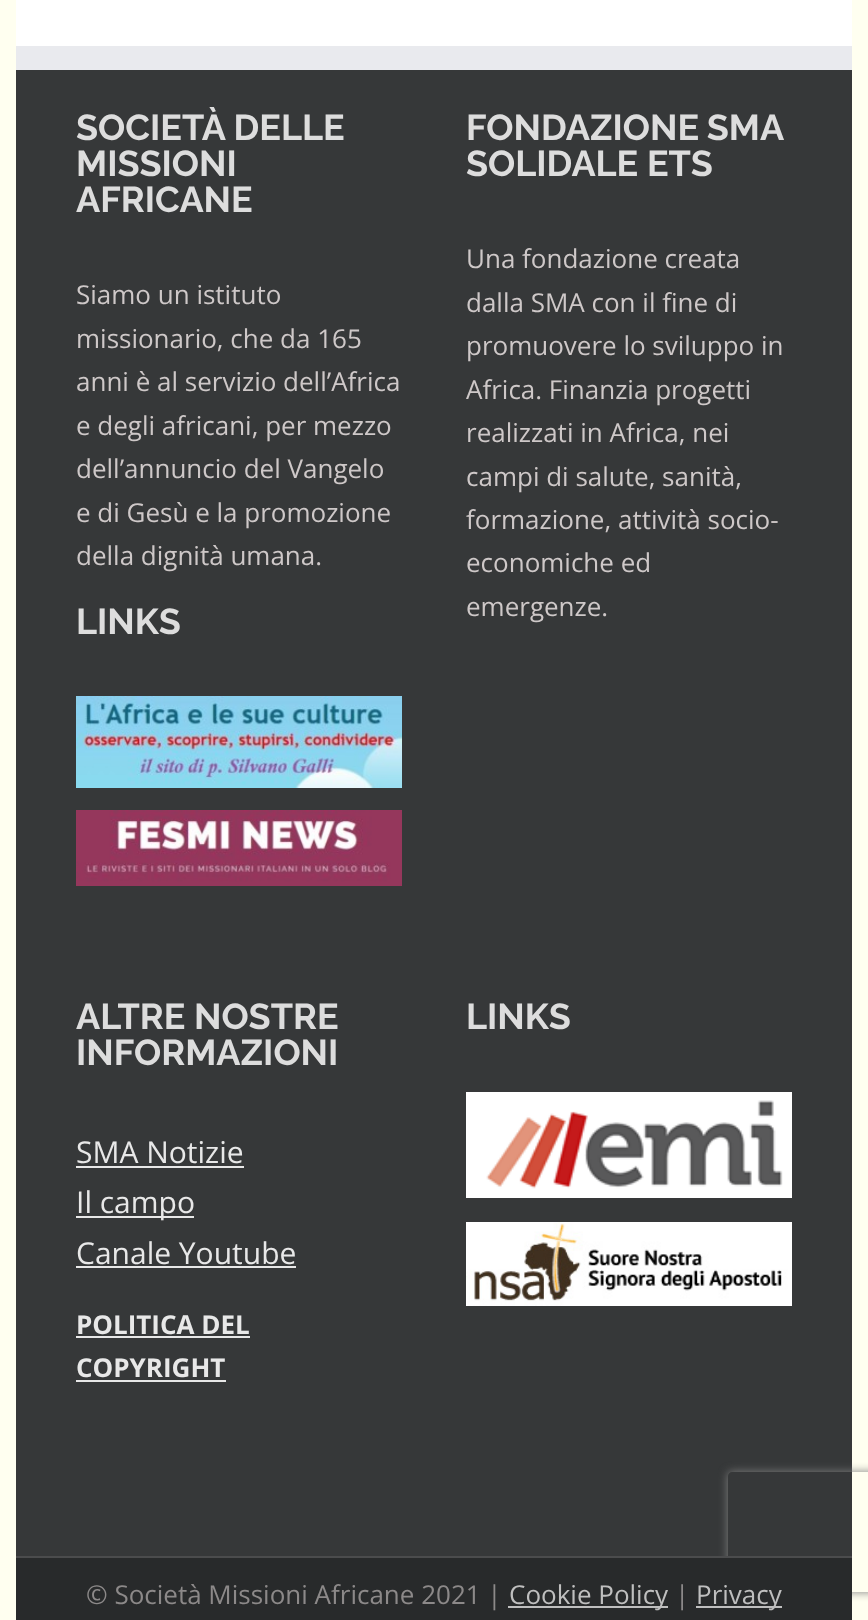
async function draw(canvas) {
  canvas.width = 868
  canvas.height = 1620
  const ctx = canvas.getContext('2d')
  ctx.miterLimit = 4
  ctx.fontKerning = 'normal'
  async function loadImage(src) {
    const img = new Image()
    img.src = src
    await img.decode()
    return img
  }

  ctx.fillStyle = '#fffff0'
  ctx.fillRect(0, 0, 868, 1620)
  ctx.fillStyle = '#fff'
  ctx.fillRect(16, 0, 836, 46)
  ctx.fillStyle = '#363839'
  ctx.fillRect(16, 70, 836, 1486)
  ctx.fillStyle = '#e9eaee'
  ctx.fillRect(16, 46, 836, 24)
  ctx.font = 'bold 36px Raleway'
  ctx.fillStyle = '#ddd'
  ctx.fillText('SOCIETÀ DELLE', 76, 140)
  ctx.fillText('MISSIONI', 76, 176)
  ctx.fillText('AFRICANE', 76, 212)
  ctx.font = '26px Open Sans'
  ctx.fillStyle = '#cec8c8'
  ctx.fillText('Siamo un istituto', 76, 304)
  ctx.fillText('missionario, che da 165', 76, 348)
  ctx.fillText('anni è al servizio dell’Africa', 76, 391)
  ctx.fillText('e degli africani, per mezzo', 76, 435)
  ctx.fillText('dell’annuncio del Vangelo', 76, 478)
  ctx.fillText('e di Gesù e la promozione', 76, 522)
  ctx.fillText('della dignità umana.', 76, 565)
  ctx.font = 'bold 36px Raleway'
  ctx.fillStyle = '#ddd'
  ctx.fillText('LINKS', 76, 634)
  ctx.drawImage(await loadImage('image0.png'), 76, 696, 326, 92)
  ctx.drawImage(await loadImage('image1.png'), 76, 810, 326, 76)
  ctx.wordSpacing = '-1px'
  ctx.fillText('FONDAZIONE SMA', 466, 140)
  ctx.wordSpacing = '0px'
  ctx.fillText('SOLIDALE ETS', 466, 176)
  ctx.font = '26px Open Sans'
  ctx.fillStyle = '#cec8c8'
  ctx.fillText('Una fondazione creata', 466, 268)
  ctx.fillText('dalla SMA con il fine di', 466, 312)
  ctx.fillText('promuovere lo sviluppo in', 466, 355)
  ctx.fillText('Africa. Finanzia progetti', 466, 399)
  ctx.fillText('realizzati in Africa, nei', 466, 442)
  ctx.fillText('campi di salute, sanità,', 466, 486)
  ctx.fillText('formazione, attività socio-', 466, 529)
  ctx.fillText('economiche ed', 466, 572)
  ctx.fillText('emergenze.', 466, 616)
  ctx.font = 'bold 36px Raleway'
  ctx.fillStyle = '#ddd'
  ctx.fillText('ALTRE NOSTRE', 76, 1029)
  ctx.fillText('INFORMAZIONI', 76, 1065)
  ctx.font = '30px Open Sans'
  ctx.fillStyle = '#e8e8e8'
  ctx.fillText('SMA Notizie', 76, 1163)
  ctx.fillRect(76, 1166, 168, 2)
  ctx.fillRect(76, 1216, 118, 2)
  ctx.fillText('Il campo', 76, 1213)
  ctx.fillText('Canale Youtube', 76, 1264)
  ctx.fillRect(76, 1266, 220, 2)
  ctx.font = 'bold 26px Open Sans'
  ctx.fillText('POLITICA DEL', 76, 1334)
  ctx.fillRect(76, 1336, 174, 2)
  ctx.fillText('COPYRIGHT', 76, 1377)
  ctx.fillRect(76, 1380, 150, 2)
  ctx.font = 'bold 36px Raleway'
  ctx.fillStyle = '#ddd'
  ctx.fillText('LINKS', 466, 1029)
  ctx.drawImage(await loadImage('image2.png'), 466, 1092, 326, 106)
  ctx.drawImage(await loadImage('image3.png'), 466, 1222, 326, 84)
  ctx.save()
  ctx.beginPath()
  ctx.moveTo(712, 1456)
  ctx.lineTo(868, 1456)
  ctx.lineTo(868, 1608)
  ctx.lineTo(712, 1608)
  ctx.closePath()
  ctx.moveTo(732, 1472)
  ctx.lineTo(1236, 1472)
  ctx.bezierCurveTo(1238, 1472, 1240, 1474, 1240, 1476)
  ctx.lineTo(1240, 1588)
  ctx.bezierCurveTo(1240, 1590, 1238, 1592, 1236, 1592)
  ctx.lineTo(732, 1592)
  ctx.bezierCurveTo(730, 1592, 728, 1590, 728, 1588)
  ctx.lineTo(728, 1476)
  ctx.bezierCurveTo(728, 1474, 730, 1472, 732, 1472)
  ctx.closePath()
  ctx.clip('evenodd')
  ctx.fillStyle = '#808080'
  ctx.filter = 'blur(5px)'
  ctx.beginPath()
  ctx.roundRect(728, 1472, 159, 120, 4)
  ctx.fill()
  ctx.filter = 'none'
  ctx.restore()
  ctx.fillStyle = '#282a2b'
  ctx.fillRect(16, 1558, 836, 62)
  ctx.fillStyle = '#4b4c4d'
  ctx.fillRect(16, 1556, 836, 2)
  ctx.font = '26px Open Sans'
  ctx.fillStyle = '#8c8989'
  ctx.fillText('© Società Missioni Africane 2021 |', 86, 1604)
  ctx.fillStyle = '#bfbfbf'
  ctx.fillRect(508, 1606, 160, 2)
  ctx.fillText('Cookie Policy', 509, 1604)
  ctx.fillStyle = '#8c8989'
  ctx.fillText('|', 675, 1604)
  ctx.fillStyle = '#bfbfbf'
  ctx.fillRect(696, 1606, 86, 2)
  ctx.fillText('Privacy', 696, 1604)
}

draw(document.querySelector('canvas'))
